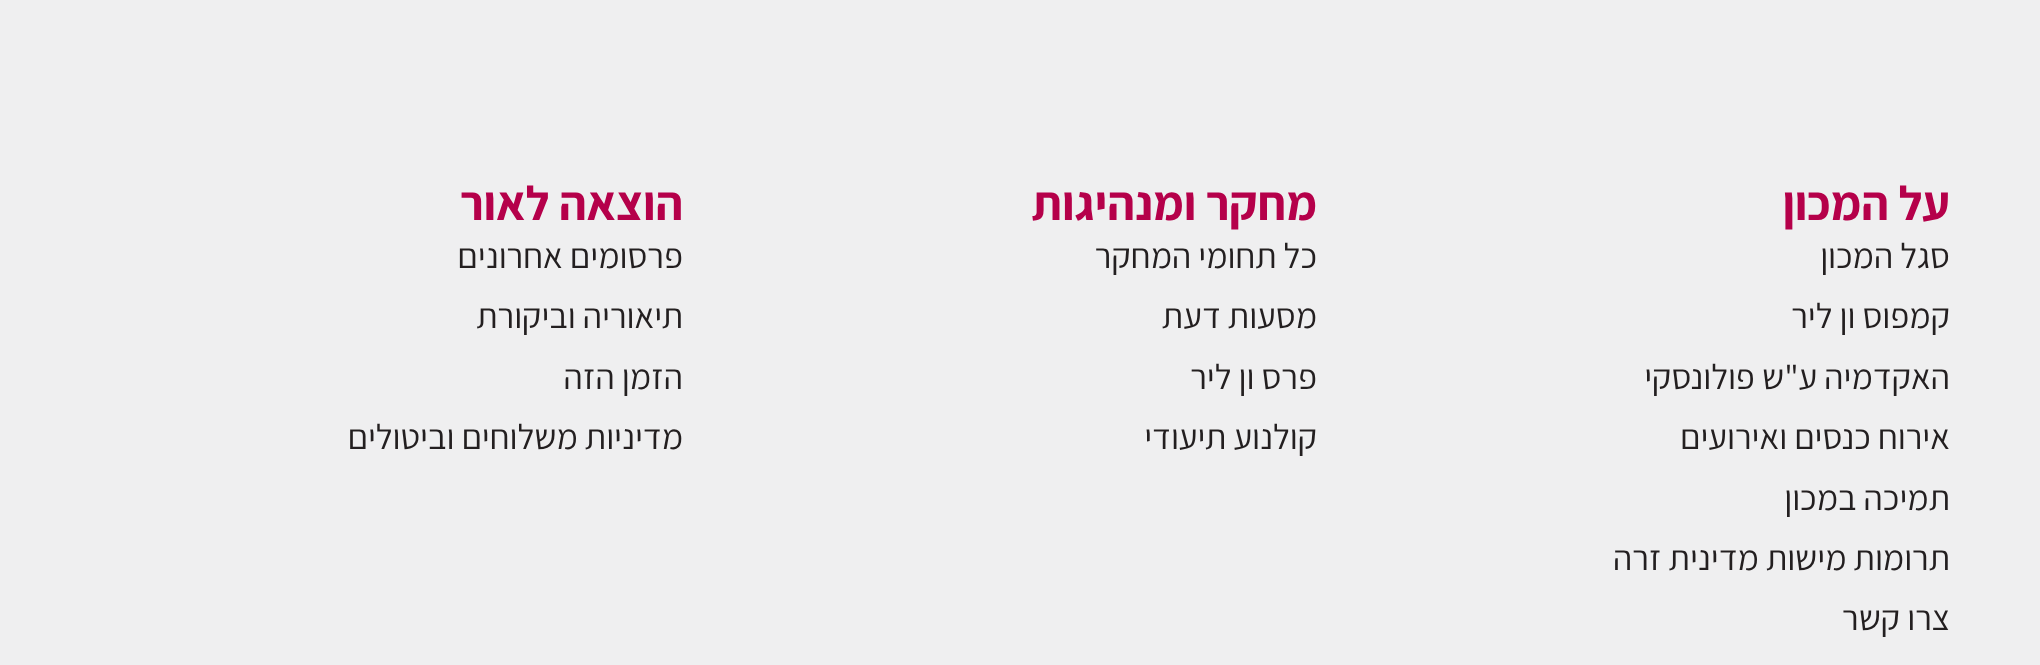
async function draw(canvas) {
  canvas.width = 2040
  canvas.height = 665
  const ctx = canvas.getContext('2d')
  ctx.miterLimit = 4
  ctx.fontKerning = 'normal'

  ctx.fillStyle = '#efeff0'
  ctx.fillRect(0, 0, 2040, 665)
  ctx.direction = 'rtl'
  ctx.font = 'bold 48px Assistant'
  ctx.fillStyle = '#b5004a'
  ctx.fillText('על המכון', 1950, 220)
  ctx.font = '35.25px Assistant'
  ctx.fillStyle = '#231f20'
  ctx.fillText('סגל המכון', 1950, 268)
  ctx.fillText('קמפוס ון ליר', 1950, 328)
  ctx.fillText('האקדמיה ע"ש פולונסקי', 1950, 389)
  ctx.fillText('אירוח כנסים ואירועים', 1950, 449)
  ctx.fillText('תמיכה במכון', 1950, 510)
  ctx.fillText('תרומות מישות מדינית זרה', 1950, 570)
  ctx.fillText('צרו קשר', 1950, 630)
  ctx.font = 'bold 48px Assistant'
  ctx.fillStyle = '#b5004a'
  ctx.fillText('מחקר ומנהיגות', 1317, 220)
  ctx.font = '35.25px Assistant'
  ctx.fillStyle = '#231f20'
  ctx.fillText('כל תחומי המחקר', 1317, 268)
  ctx.fillText('מסעות דעת', 1317, 328)
  ctx.fillText('פרס ון ליר', 1317, 389)
  ctx.fillText('קולנוע תיעודי', 1317, 449)
  ctx.font = 'bold 48px Assistant'
  ctx.fillStyle = '#b5004a'
  ctx.fillText('הוצאה לאור', 683, 220)
  ctx.font = '35.25px Assistant'
  ctx.fillStyle = '#231f20'
  ctx.fillText('פרסומים אחרונים', 683, 268)
  ctx.fillText('תיאוריה וביקורת', 683, 328)
  ctx.fillText('הזמן הזה', 683, 389)
  ctx.fillText('מדיניות משלוחים וביטולים', 683, 449)
}

draw(document.querySelector('canvas'))
